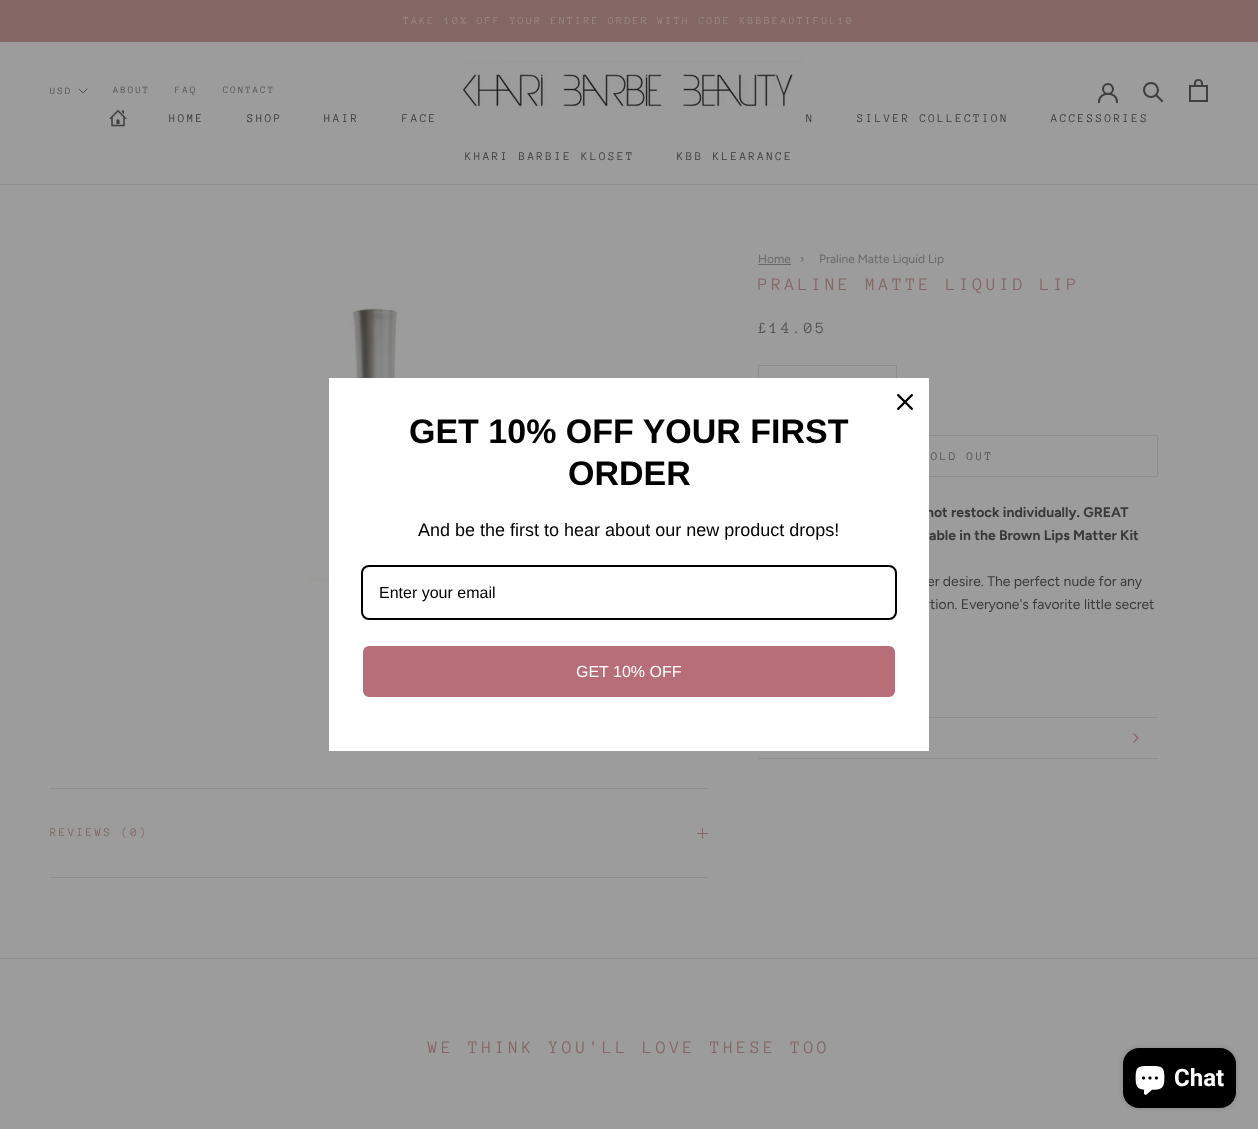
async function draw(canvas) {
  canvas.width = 1258
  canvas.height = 1129
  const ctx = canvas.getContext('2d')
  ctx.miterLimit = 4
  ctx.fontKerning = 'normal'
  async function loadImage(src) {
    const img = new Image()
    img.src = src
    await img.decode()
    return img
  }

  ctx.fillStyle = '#9c9c9c'
  ctx.fillRect(0, 0, 1258, 1129)
  ctx.fillStyle = '#846664'
  ctx.fillRect(0, 0, 1258, 42)
  ctx.letterSpacing = '2.2px'
  ctx.font = '11px Anonymous Pro'
  ctx.fillStyle = '#988b85'
  ctx.fillText('TAKE 10% OFF YOUR ENTIRE ORDER WITH CODE KBBBEAUTIFUL10', 403, 24)
  ctx.fillStyle = '#8e8e8e'
  ctx.fillRect(0, 184, 1258, 1)
  ctx.drawImage(await loadImage('image0.png'), 462, 60, 342, 61)
  ctx.beginPath()
  ctx.moveTo(1099, 102)
  ctx.bezierCurveTo(1099, 91, 1117, 91, 1117, 102)
  ctx.strokeStyle = '#3f3f3f'
  ctx.lineWidth = 2
  ctx.lineCap = 'square'
  ctx.stroke()
  ctx.beginPath()
  ctx.arc(1108, 89, 5, 0, 2 * Math.PI)
  ctx.stroke()
  ctx.beginPath()
  ctx.moveTo(1162, 101)
  ctx.lineTo(1156.5, 95.5)
  ctx.stroke()
  ctx.beginPath()
  ctx.arc(1151, 90, 7, 0, 2 * Math.PI)
  ctx.stroke()
  ctx.drawImage(await loadImage('image1.png'), 1189, 79, 19, 23)
  ctx.letterSpacing = '2px'
  ctx.font = '10px Anonymous Pro'
  ctx.fillStyle = '#515151'
  ctx.fillText('USD', 50, 94)
  ctx.beginPath()
  ctx.moveTo(87, 89)
  ctx.lineTo(83, 93)
  ctx.lineTo(79, 89)
  ctx.strokeStyle = '#515151'
  ctx.lineWidth = 1
  ctx.stroke()
  ctx.fillText('ABOUT', 113, 93)
  ctx.fillText('FAQ', 175, 93)
  ctx.fillText('CONTACT', 223, 93)
  ctx.drawImage(await loadImage('image2.png'), 109, 109, 18, 18)
  ctx.letterSpacing = '2.4px'
  ctx.font = '12px Anonymous Pro'
  ctx.fillStyle = '#3a3a3a'
  ctx.fillText('HOME', 169, 122)
  ctx.fillText('SHOP', 247, 122)
  ctx.fillText('HAIR', 324, 122)
  ctx.fillText('FACE', 402, 122)
  ctx.fillText('N', 806, 122)
  ctx.fillText('SILVER COLLECTION', 857, 122)
  ctx.fillText('ACCESSORIES', 1051, 122)
  ctx.fillText('KHARI BARBIE KLOSET', 465, 160)
  ctx.fillText('KBB KLEARANCE', 677, 160)
  ctx.drawImage(await loadImage('image3.png'), 309, 308, 91, 356)
  ctx.letterSpacing = '0px'
  ctx.font = '12px Figtree'
  ctx.fillStyle = '#696969'
  ctx.fillText('Home', 758, 263)
  ctx.fillRect(758, 264, 33, 1)
  ctx.fillText('›', 800, 263)
  ctx.fillText('Praline Matte Liquid Lip', 819, 263)
  ctx.letterSpacing = '3.6px'
  ctx.font = '18px Anonymous Pro'
  ctx.fillStyle = '#846664'
  ctx.fillText('PRALINE MATTE LIQUID LIP', 758, 290)
  ctx.letterSpacing = '2.75px'
  ctx.font = '16px Anonymous Pro'
  ctx.fillStyle = '#515151'
  ctx.fillText('£14.05', 758, 333)
  ctx.strokeStyle = '#8d8d8d'
  ctx.strokeRect(758.5, 365.5, 138, 44)
  ctx.strokeRect(758.5, 435.5, 399, 41)
  ctx.letterSpacing = '2.4px'
  ctx.font = '12px Anonymous Pro'
  ctx.fillText('OLD OUT', 931, 460)
  ctx.letterSpacing = '0px'
  ctx.font = 'bold 14px Figtree'
  ctx.fillStyle = '#3a3a3a'
  ctx.fillText('not restock individually. GREAT', 926, 517)
  ctx.fillText('able in the Brown Lips Matter Kit', 929, 540)
  ctx.font = '14px Figtree'
  ctx.fillText('er desire. The perfect nude for any', 927, 586)
  ctx.fillText('tion. Everyone\'s favorite little secret', 930, 609)
  ctx.fillStyle = '#8d8d8d'
  ctx.fillRect(929, 717, 229, 1)
  ctx.fillRect(758, 758, 400, 1)
  ctx.beginPath()
  ctx.moveTo(1134, 734)
  ctx.lineTo(1138, 738)
  ctx.lineTo(1134, 742)
  ctx.strokeStyle = '#846664'
  ctx.lineWidth = 1.1
  ctx.stroke()
  ctx.fillRect(50, 788, 658, 1)
  ctx.fillRect(50, 877, 658, 1)
  ctx.letterSpacing = '2.4px'
  ctx.font = '12px Anonymous Pro'
  ctx.fillStyle = '#846664'
  ctx.fillText('REVIEWS (0)', 50, 836)
  ctx.fillRect(702, 828, 1, 11)
  ctx.fillRect(697, 833, 11, 1)
  ctx.fillStyle = '#8d8d8d'
  ctx.fillRect(0, 958, 1258, 1)
  ctx.letterSpacing = '3.6px'
  ctx.font = '18px Anonymous Pro'
  ctx.fillStyle = '#846664'
  ctx.fillText('WE THINK YOU\'LL LOVE THESE TOO', 428, 1053)
  ctx.fillStyle = '#fff'
  ctx.fillRect(329, 378, 600, 373)
  ctx.drawImage(await loadImage('image4.png'), 897, 394, 16, 16)
  ctx.letterSpacing = '0px'
  ctx.font = 'bold 34px Liberation Sans'
  ctx.fillStyle = '#000'
  ctx.fillText('GET 10% OFF YOUR FIRST', 409, 443)
  ctx.fillText('ORDER', 568, 485)
  ctx.font = '18px Liberation Sans'
  ctx.fillText('And be the first to hear about our new product drops!', 418, 536)
  ctx.beginPath()
  ctx.roundRect(362, 566, 534, 53, 7)
  ctx.strokeStyle = '#000'
  ctx.lineWidth = 2
  ctx.stroke()
  ctx.font = '16px Liberation Sans'
  ctx.fillText('Enter your email', 379, 598)
  ctx.fillStyle = '#b76e79'
  ctx.beginPath()
  ctx.roundRect(362, 645, 534, 53, 7)
  ctx.fill()
  ctx.strokeStyle = '#fff'
  ctx.stroke()
  ctx.fillStyle = '#fff'
  ctx.fillText('GET 10% OFF', 576, 677)
  ctx.fillStyle = '#00000026'
  ctx.filter = 'blur(2.5px)'
  ctx.beginPath()
  ctx.roundRect(1123, 1048, 113, 60, 16)
  ctx.fill()
  ctx.filter = 'none'
  ctx.fillStyle = '#000'
  ctx.beginPath()
  ctx.roundRect(1123, 1048, 113, 60, 16)
  ctx.fill()
  ctx.drawImage(await loadImage('image5.png'), 1135, 1066, 30, 29)
  ctx.font = 'bold 24px Roboto'
  ctx.fillStyle = '#fff'
  ctx.fillText('Chat', 1174, 1086)
}

draw(document.querySelector('canvas'))
